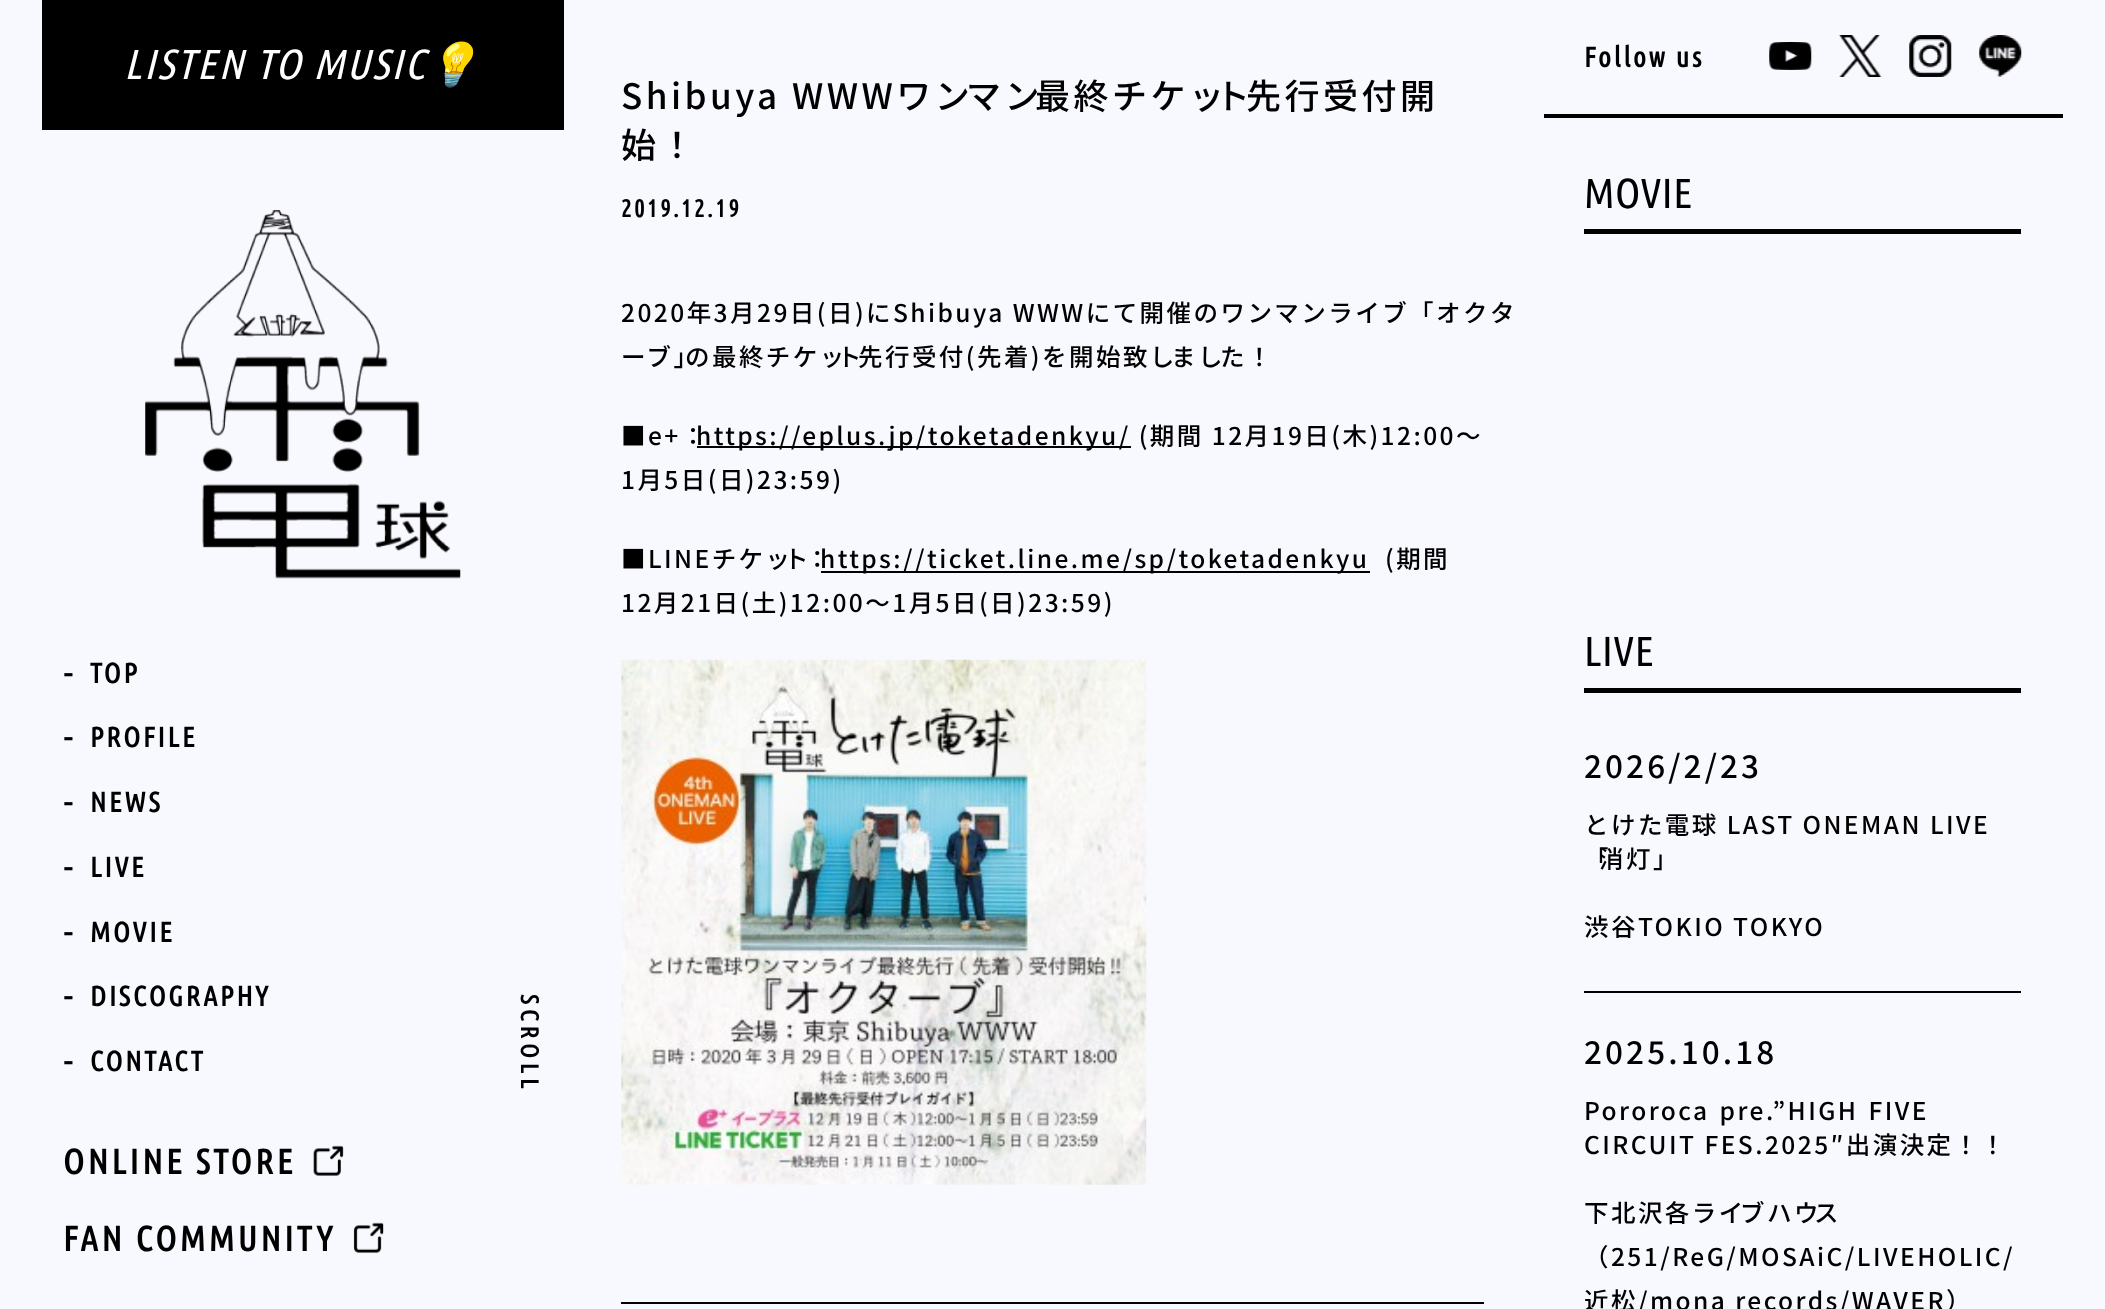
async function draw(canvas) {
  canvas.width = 2105
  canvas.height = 1309
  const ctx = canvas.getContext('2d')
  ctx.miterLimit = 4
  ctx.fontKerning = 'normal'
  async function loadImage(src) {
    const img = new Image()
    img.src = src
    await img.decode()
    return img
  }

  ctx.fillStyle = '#f8f8ff'
  ctx.fillRect(0, 0, 2105, 1309)
  ctx.fillStyle = '#000'
  ctx.fillRect(42, 0, 522, 130)
  ctx.letterSpacing = '2.45px'
  ctx.font = 'italic 42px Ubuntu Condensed'
  ctx.fillStyle = '#fff'
  ctx.fillText('LISTEN TO MUSIC', 124, 79)
  ctx.font = 'italic 42px Noto Color Emoji'
  ctx.fillText('💡', 426, 79)
  ctx.drawImage(await loadImage('image0.png'), 145, 210, 316, 369)
  ctx.letterSpacing = '2.75px'
  ctx.font = 'bold 28px Noto Sans JP'
  ctx.fillStyle = '#000'
  ctx.fillText('-', 63, 683)
  ctx.font = 'bold 28px Ubuntu Condensed'
  ctx.fillText('TOP', 90, 683)
  ctx.font = 'bold 28px Noto Sans JP'
  ctx.fillText('-', 63, 747)
  ctx.font = 'bold 28px Ubuntu Condensed'
  ctx.fillText('PROFILE', 90, 747)
  ctx.font = 'bold 28px Noto Sans JP'
  ctx.fillText('-', 63, 812)
  ctx.font = 'bold 28px Ubuntu Condensed'
  ctx.fillText('NEWS', 90, 812)
  ctx.font = 'bold 28px Noto Sans JP'
  ctx.fillText('-', 63, 877)
  ctx.font = 'bold 28px Ubuntu Condensed'
  ctx.fillText('LIVE', 90, 877)
  ctx.font = 'bold 28px Noto Sans JP'
  ctx.fillText('-', 63, 942)
  ctx.font = 'bold 28px Ubuntu Condensed'
  ctx.fillText('MOVIE', 90, 942)
  ctx.font = 'bold 28px Noto Sans JP'
  ctx.fillText('-', 63, 1006)
  ctx.font = 'bold 28px Ubuntu Condensed'
  ctx.fillText('DISCOGRAPHY', 90, 1006)
  ctx.font = 'bold 28px Noto Sans JP'
  ctx.fillText('-', 63, 1071)
  ctx.font = 'bold 28px Ubuntu Condensed'
  ctx.fillText('CONTACT', 90, 1071)
  ctx.letterSpacing = '3.5px'
  ctx.font = 'bold 35px Ubuntu Condensed'
  ctx.fillText('ONLINE STORE', 63, 1174)
  ctx.drawImage(await loadImage('image1.png'), 313, 1145, 31, 31)
  ctx.fillText('FAN COMMUNITY', 63, 1251)
  ctx.drawImage(await loadImage('image2.png'), 353, 1222, 31, 31)
  ctx.letterSpacing = '5px'
  ctx.font = 'bold 24.5px Ubuntu Condensed'
  ctx.save()
  ctx.translate(521, 994)
  ctx.rotate(90 * Math.PI / 180)
  ctx.fillText('SCROLL', 0, 0)
  ctx.restore()
  ctx.fillRect(1544, 114, 519, 4)
  ctx.letterSpacing = '2.75px'
  ctx.font = 'bold 28px Ubuntu Condensed'
  ctx.fillText('Follow us', 1584, 67)
  ctx.drawImage(await loadImage('image3.png'), 1769, 42, 43, 28)
  ctx.drawImage(await loadImage('image4.png'), 1839, 35, 43, 42)
  ctx.drawImage(await loadImage('image5.png'), 1909, 35, 43, 42)
  ctx.drawImage(await loadImage('image6.png'), 1979, 35, 43, 42)
  ctx.fillRect(1584, 229, 437, 5)
  ctx.letterSpacing = '0.5px'
  ctx.font = '42px Ubuntu Condensed'
  ctx.fillText('MOVIE', 1584, 208)
  ctx.fillRect(1584, 688, 437, 5)
  ctx.fillText('LIVE', 1584, 666)
  ctx.fillRect(1584, 991, 437, 2)
  ctx.letterSpacing = '3.1px'
  ctx.font = '100 31.5px Noto Sans JP'
  ctx.fillText('2026/2/23', 1584, 778)
  ctx.letterSpacing = '2.45px'
  ctx.font = '100 24.5px Noto Sans JP'
  ctx.fillText('とけた電球 LAST ONEMAN LIVE', 1584, 834)
  ctx.fillText('「', 1584, 868)
  ctx.fillText('消灯」', 1599, 868)
  ctx.fillText('渋谷TOKIO TOKYO', 1584, 936)
  ctx.letterSpacing = '3.1px'
  ctx.font = '100 31.5px Noto Sans JP'
  ctx.fillText('2025.10.18', 1584, 1064)
  ctx.letterSpacing = '2.45px'
  ctx.wordSpacing = '2px'
  ctx.font = '100 24.5px Noto Sans JP'
  ctx.fillText('Pororoca pre.”HIGH FIVE', 1584, 1120)
  ctx.wordSpacing = '0px'
  ctx.font = '100 24.5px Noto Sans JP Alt'
  ctx.fillText('CIRCUIT FES.2025″出演決定！！', 1584, 1154)
  ctx.font = '100 24.5px Noto Sans JP'
  ctx.fillText('下北沢各ライ', 1584, 1222)
  ctx.fillText('ブハウ', 1740, 1222)
  ctx.fillText('ス', 1814, 1222)
  ctx.font = '100 24.5px Noto Sans JP Alt'
  ctx.fillText('（251/ReG/MOSAiC/LIVEHOLIC/', 1584, 1266)
  ctx.font = '100 24.5px Noto Sans JP'
  ctx.fillText('近松/mona records/WAVER）', 1584, 1310)
  ctx.letterSpacing = '3.5px'
  ctx.font = '100 35px Noto Sans JP'
  ctx.fillText('Shibuya WWWワン', 621, 109)
  ctx.fillText('マン', 966, 109)
  ctx.fillText('最終チケッ', 1035, 109)
  ctx.fillText('ト', 1215, 109)
  ctx.fillText('先行受付開', 1246, 109)
  ctx.fillText('始！', 621, 158)
  ctx.letterSpacing = '2.45px'
  ctx.font = 'bold 24.5px Ubuntu Condensed'
  ctx.fillText('2019.12.19', 621, 217)
  ctx.font = '100 24.5px Noto Sans JP Alt'
  ctx.fillText('2020年3月29日(日)にShibuya WWWにて開催のワンマンライブ「オクタ', 621, 322)
  ctx.font = '100 24.5px Noto Sans JP'
  ctx.fillText('ーブ」', 621, 366)
  ctx.fillText('の最終チケッ', 685, 366)
  ctx.fillText('ト', 837, 366)
  ctx.fillText('先行受付(先着)を開始致し', 858, 366)
  ctx.fillText('まし', 1171, 366)
  ctx.fillText('た！', 1220, 366)
  ctx.fillText('■e+：', 621, 445)
  ctx.fillRect(697, 446, 434, 2)
  ctx.fillText('https://eplus.jp/toketadenkyu/ (期間 12月19日(木)12:00〜', 696, 445)
  ctx.fillText('1月5日(日)23:59)', 621, 489)
  ctx.fillText('■LINEチケッ', 621, 568)
  ctx.fillText('ト', 784, 568)
  ctx.fillText('：', 805, 568)
  ctx.fillRect(821, 571, 549, 2)
  ctx.fillText('https://ticket.line.me/sp/toketadenkyu', 820, 568)
  ctx.fillText('(期間', 1385, 568)
  ctx.fillText('12月21日(土)12:00〜1月5日(日)23:59)', 621, 612)
  ctx.drawImage(await loadImage('image7.png'), 621, 659, 526, 526)
  ctx.fillRect(621, 1302, 863, 2)
}

draw(document.querySelector('canvas'))
